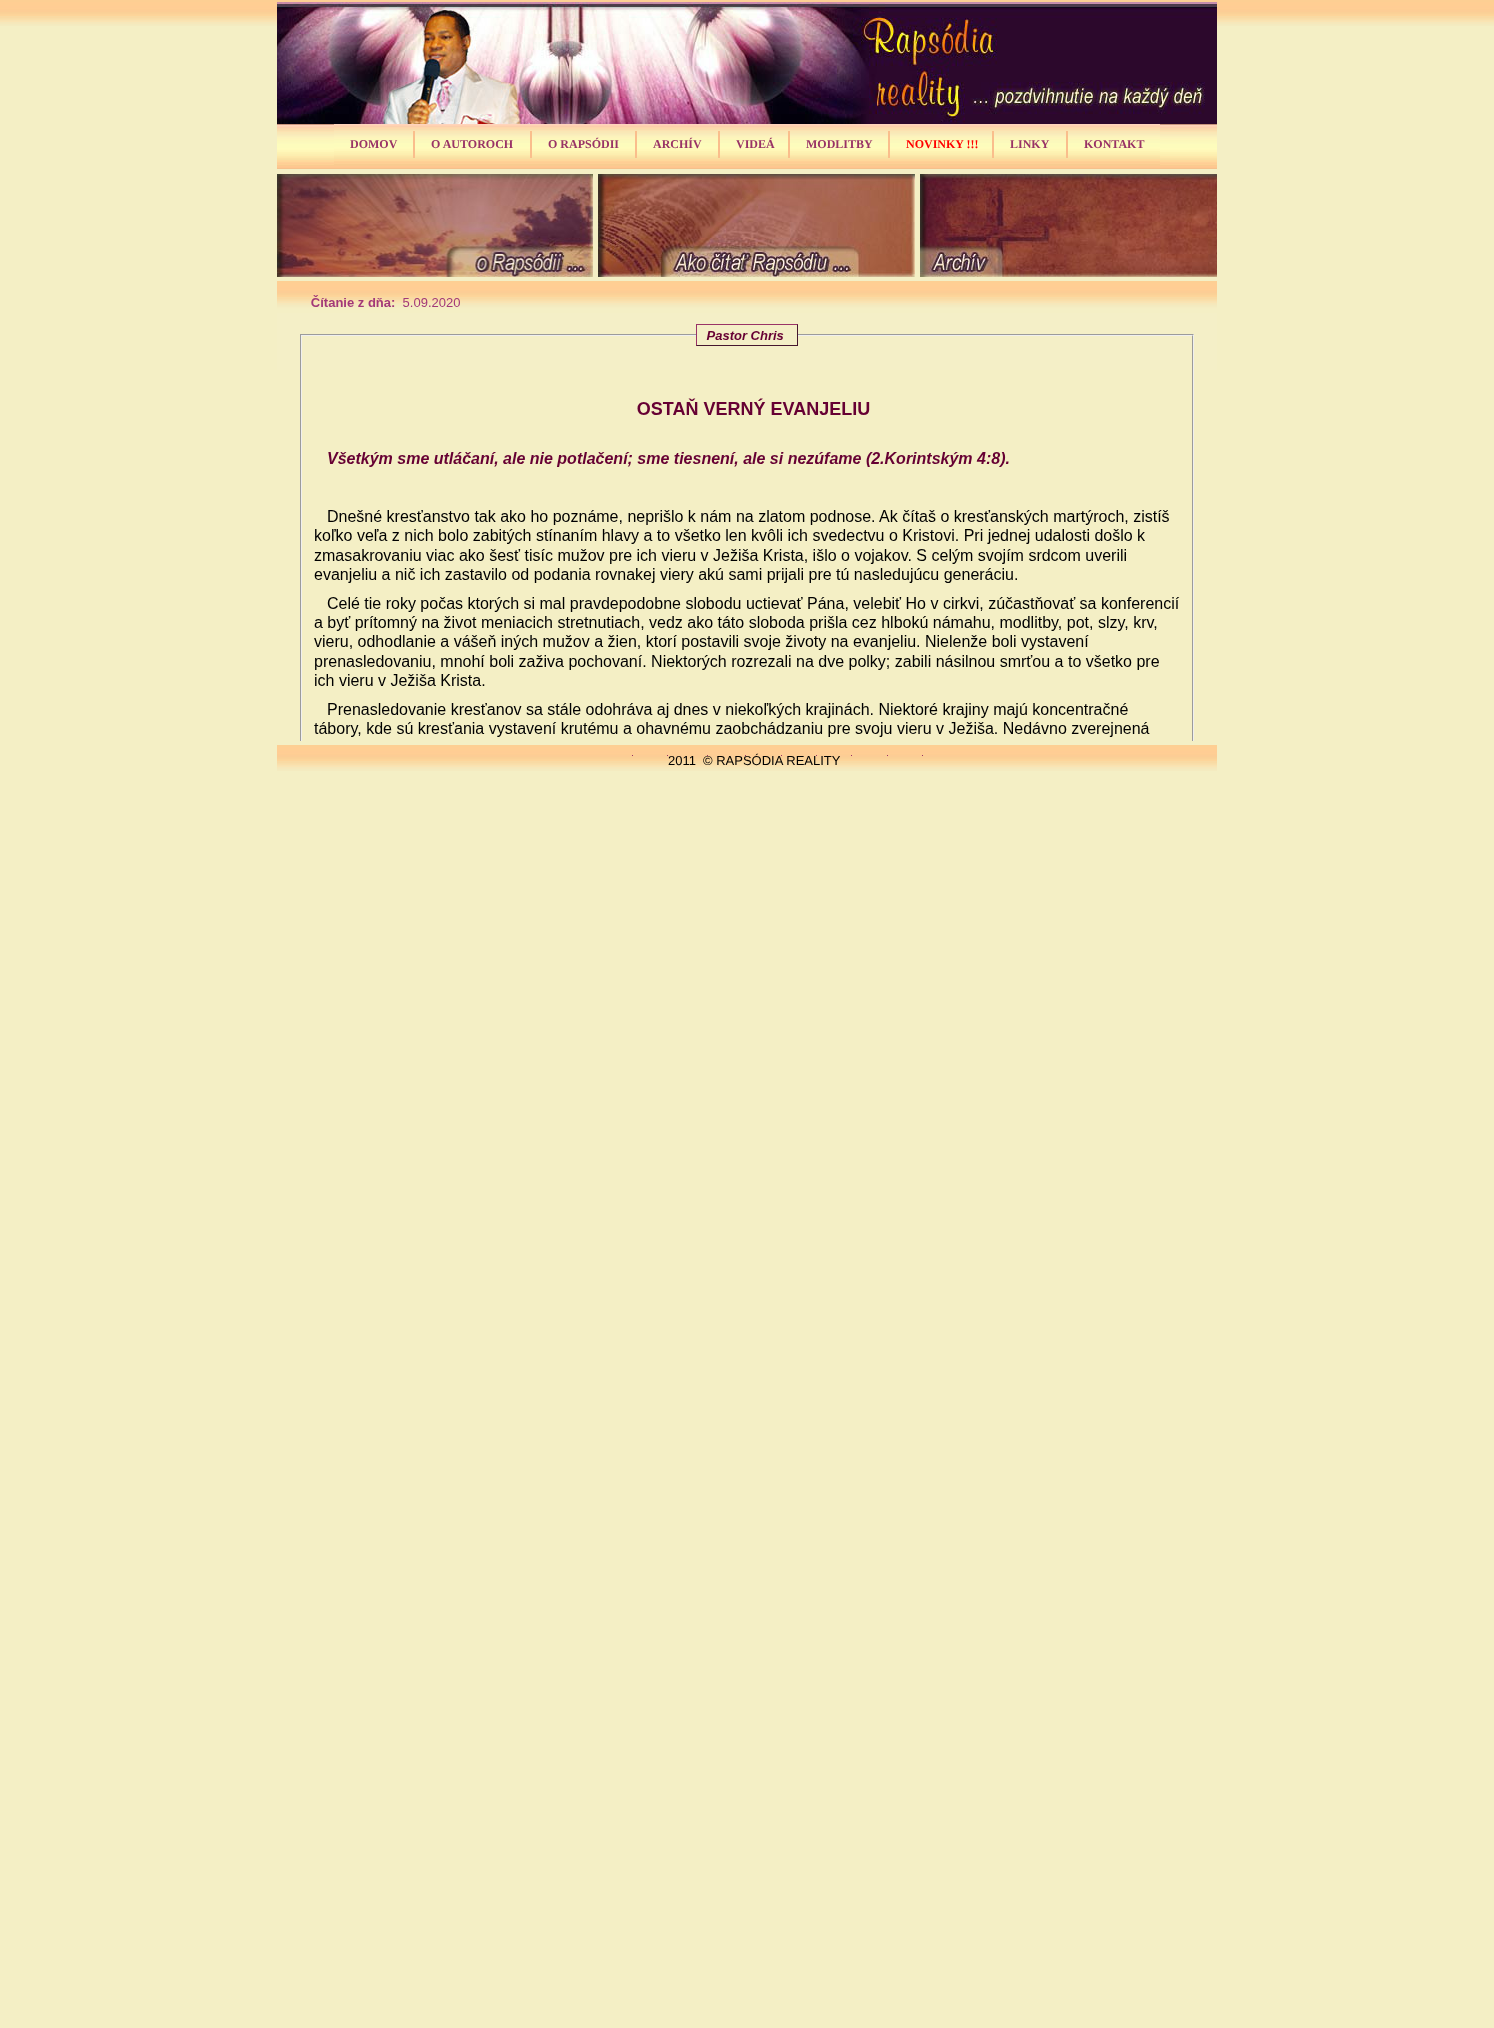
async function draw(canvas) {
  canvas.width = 1494
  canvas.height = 2028
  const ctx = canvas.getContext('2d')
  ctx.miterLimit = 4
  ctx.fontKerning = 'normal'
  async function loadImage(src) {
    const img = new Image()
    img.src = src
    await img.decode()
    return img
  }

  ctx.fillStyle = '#f4efc5'
  ctx.fillRect(0, 0, 1494, 2028)
  ctx.drawImage(await loadImage('image0.png'), 0, 0, 1494, 26)
  ctx.drawImage(await loadImage('image1.png'), 277, 2, 940, 122)
  ctx.drawImage(await loadImage('image2.png'), 277, 124, 940, 45)
  ctx.drawImage(await loadImage('image3.png'), 334, 124, 826, 41)
  ctx.font = 'bold 12px Liberation Serif'
  ctx.fillStyle = '#936'
  ctx.fillText('DOMOV', 350, 148)
  ctx.fillStyle = '#fabe8c'
  ctx.fillRect(413, 131, 2, 27)
  ctx.fillStyle = '#936'
  ctx.fillText('O AUTOROCH', 431, 148)
  ctx.fillStyle = '#fabe8c'
  ctx.fillRect(530, 131, 2, 27)
  ctx.fillStyle = '#936'
  ctx.fillText('O RAPSÓDII', 548, 148)
  ctx.fillStyle = '#fabe8c'
  ctx.fillRect(635, 131, 2, 27)
  ctx.fillStyle = '#936'
  ctx.fillText('ARCHÍV', 653, 148)
  ctx.fillStyle = '#fabe8c'
  ctx.fillRect(718, 131, 2, 27)
  ctx.fillStyle = '#936'
  ctx.fillText('VIDEÁ', 736, 148)
  ctx.fillStyle = '#fabe8c'
  ctx.fillRect(788, 131, 2, 27)
  ctx.fillStyle = '#936'
  ctx.fillText('MODLITBY', 806, 148)
  ctx.fillStyle = '#fabe8c'
  ctx.fillRect(888, 131, 2, 27)
  ctx.fillStyle = '#f00'
  ctx.fillText('NOVINKY !!!', 906, 148)
  ctx.fillStyle = '#fabe8c'
  ctx.fillRect(992, 131, 2, 27)
  ctx.fillStyle = '#936'
  ctx.fillText('LINKY', 1010, 148)
  ctx.fillStyle = '#fabe8c'
  ctx.fillRect(1066, 131, 2, 27)
  ctx.fillStyle = '#936'
  ctx.fillText('KONTAKT', 1084, 148)
  ctx.drawImage(await loadImage('image4.png'), 277, 174, 316, 103)
  ctx.drawImage(await loadImage('image5.png'), 598, 174, 317, 103)
  ctx.drawImage(await loadImage('image6.png'), 920, 174, 297, 103)
  ctx.drawImage(await loadImage('image7.png'), 277, 281, 940, 460)
  ctx.drawImage(await loadImage('image8.png'), 277, 745, 940, 26)
  ctx.font = '13px Liberation Sans'
  ctx.fillStyle = '#000'
  ctx.fillText('© RAPSÓDIA REALITY', 703, 765)
  ctx.fillStyle = '#936'
  ctx.fillRect(632, 755, 1, 1)
  ctx.fillRect(667, 755, 1, 1)
  ctx.fillRect(707, 755, 1, 1)
  ctx.fillRect(745, 755, 1, 1)
  ctx.fillRect(781, 755, 1, 1)
  ctx.fillRect(816, 755, 1, 1)
  ctx.fillRect(851, 755, 1, 1)
  ctx.fillRect(887, 755, 1, 1)
  ctx.fillRect(922, 755, 1, 1)
  ctx.fillStyle = '#000'
  ctx.fillText('2011', 668, 765)
}

draw(document.querySelector('canvas'))
